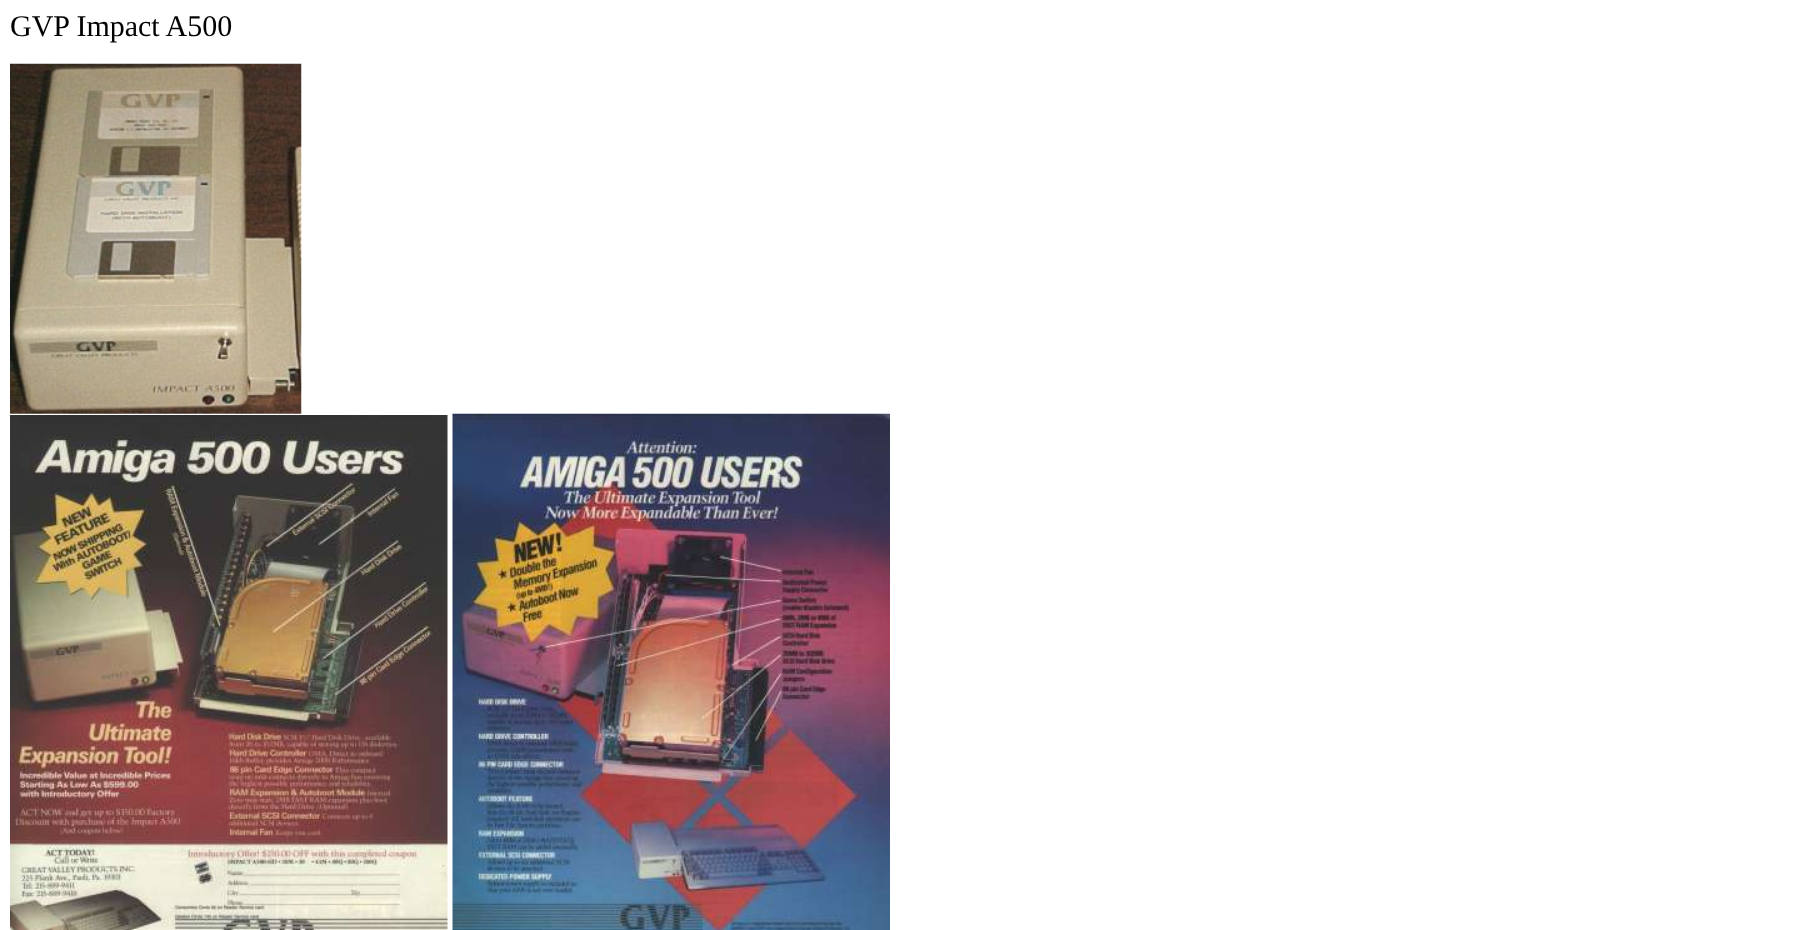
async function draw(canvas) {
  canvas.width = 1810
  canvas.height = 930
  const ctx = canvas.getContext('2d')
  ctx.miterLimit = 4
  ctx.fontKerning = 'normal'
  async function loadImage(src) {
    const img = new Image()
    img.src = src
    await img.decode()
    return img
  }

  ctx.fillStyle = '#fff'
  ctx.fillRect(0, 0, 1810, 930)
  ctx.font = '30px Liberation Serif'
  ctx.fillStyle = '#000'
  ctx.fillText('GVP Impact A500', 10, 36)
  ctx.drawImage(await loadImage('image0.png'), 10, 63, 292, 351)
  ctx.drawImage(await loadImage('image1.png'), 10, 415, 438, 515)
  ctx.drawImage(await loadImage('image2.png'), 452, 413, 438, 517)
}

draw(document.querySelector('canvas'))
